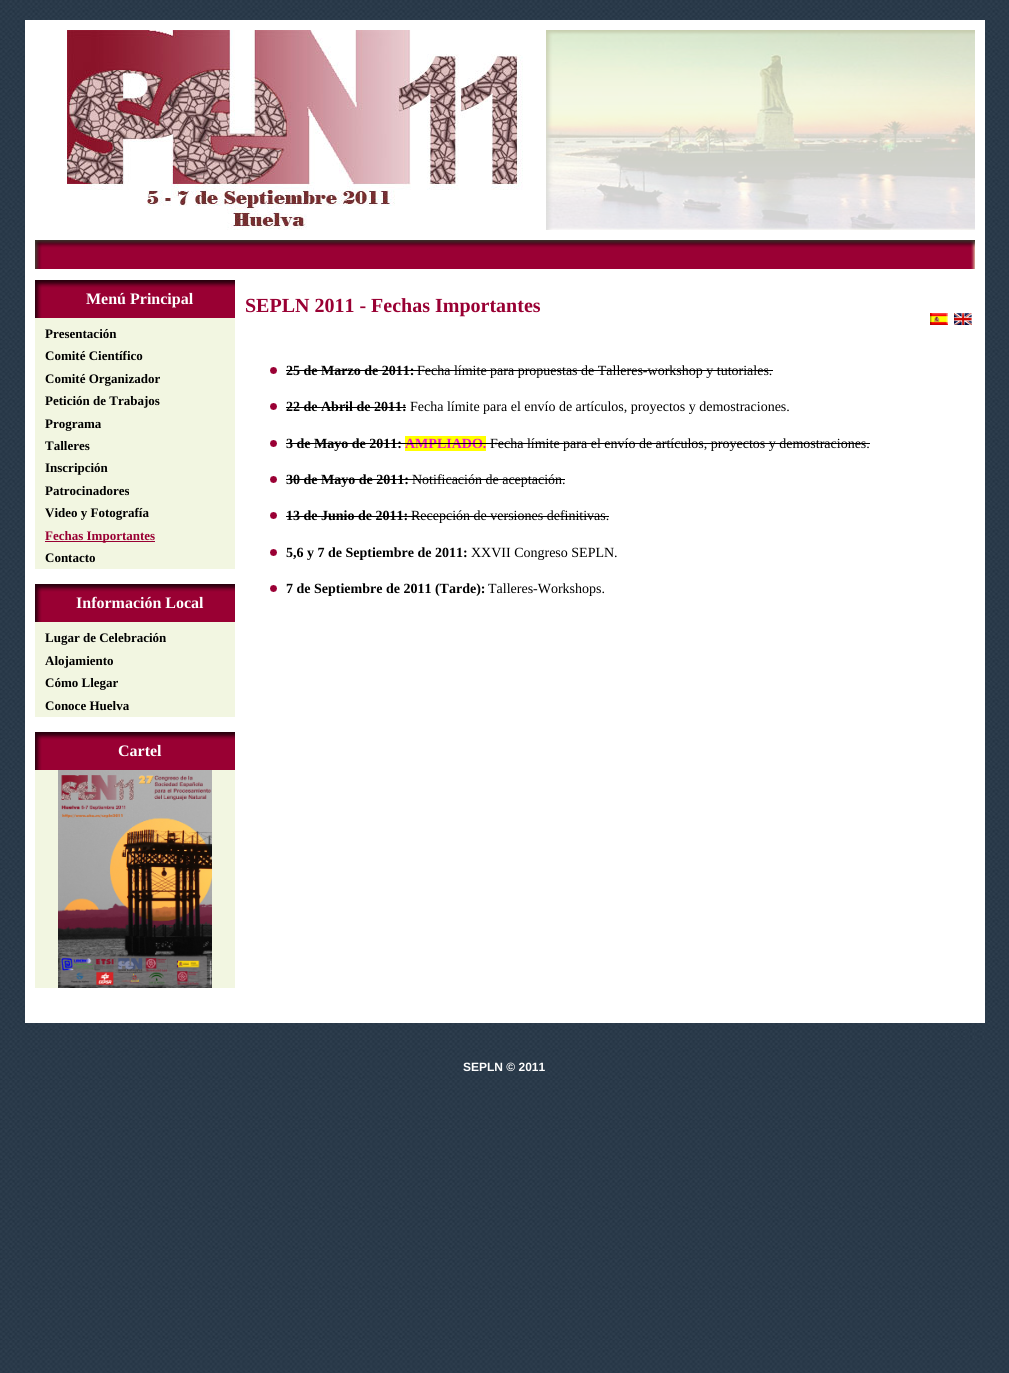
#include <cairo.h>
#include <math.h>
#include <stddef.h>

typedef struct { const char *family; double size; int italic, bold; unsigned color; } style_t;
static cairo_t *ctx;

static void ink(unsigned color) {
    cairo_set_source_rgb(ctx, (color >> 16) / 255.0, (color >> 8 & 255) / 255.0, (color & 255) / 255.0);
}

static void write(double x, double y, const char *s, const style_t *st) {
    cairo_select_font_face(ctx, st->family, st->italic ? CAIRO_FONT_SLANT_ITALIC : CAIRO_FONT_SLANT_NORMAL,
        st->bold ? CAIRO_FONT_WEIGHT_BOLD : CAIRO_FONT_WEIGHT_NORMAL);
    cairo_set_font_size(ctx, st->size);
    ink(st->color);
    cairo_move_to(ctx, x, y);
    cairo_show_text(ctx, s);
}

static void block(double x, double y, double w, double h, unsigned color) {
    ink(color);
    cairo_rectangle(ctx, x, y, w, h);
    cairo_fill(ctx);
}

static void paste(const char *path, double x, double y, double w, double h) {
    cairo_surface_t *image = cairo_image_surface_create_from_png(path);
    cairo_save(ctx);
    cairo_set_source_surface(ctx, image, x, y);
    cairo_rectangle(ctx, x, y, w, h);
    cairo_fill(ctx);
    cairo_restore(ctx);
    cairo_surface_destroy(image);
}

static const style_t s1 = {"Liberation Serif", 16, 0, 1, 0xfefefe};
static const style_t s2 = {"Liberation Serif", 13, 0, 1, 0x000000};
static const style_t s3 = {"Liberation Serif", 13, 0, 1, 0x990033};
static const style_t s4 = {"Liberation Serif", 20, 0, 1, 0x990033};
static const style_t s5 = {"Liberation Serif", 14, 0, 1, 0x000000};
static const style_t s6 = {"Liberation Serif", 14, 0, 0, 0x000000};
static const style_t s7 = {"Liberation Serif", 14, 0, 1, 0xee10cf};
static const style_t s8 = {"Liberation Sans", 12, 0, 1, 0xfefefe};

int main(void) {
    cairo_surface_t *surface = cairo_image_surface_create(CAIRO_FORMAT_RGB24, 1009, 1373);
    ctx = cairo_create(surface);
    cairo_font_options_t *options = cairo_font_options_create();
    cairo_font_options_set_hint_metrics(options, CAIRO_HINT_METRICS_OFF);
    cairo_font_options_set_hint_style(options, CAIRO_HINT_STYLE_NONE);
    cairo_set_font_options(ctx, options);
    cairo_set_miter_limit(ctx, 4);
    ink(0xffffff);
    cairo_paint(ctx);
    paste("pic1.png", 0, 1023, 1009, 350);
    paste("pic2.png", 0, 0, 1009, 1023);
    block(25, 20, 960, 1003, 0xffffff);
    paste("pic3.png", 67, 30, 456, 200);
    paste("pic4.png", 546, 30, 429, 200);
    paste("pic5.png", 546, 30, 429, 200);
    paste("pic6.png", 35, 240, 940, 29);
    block(35, 318, 200, 251, 0xf2f6e1);
    paste("pic7.png", 35, 280, 200, 38);
    write(86, 304, "Menú Principal", &s1);
    write(45, 338, "Presentación", &s2);
    write(45, 360, "Comité Científico", &s2);
    write(45, 383, "Comité Organizador", &s2);
    write(45, 405, "Petición de Trabajos", &s2);
    write(45, 428, "Programa", &s2);
    write(45, 450, "Talleres", &s2);
    write(45, 472, "Inscripción", &s2);
    write(45, 495, "Patrocinadores", &s2);
    write(45, 517, "Video y Fotografía", &s2);
    block(45, 541, 110, 1, 0x990033);
    write(45, 540, "Fechas Importantes", &s3);
    write(45, 562, "Contacto", &s2);
    block(35, 622, 200, 95, 0xf2f6e1);
    paste("pic7.png", 35, 584, 200, 38);
    write(76, 608, "Información Local", &s1);
    write(45, 642, "Lugar de Celebración", &s2);
    write(45, 665, "Alojamiento", &s2);
    write(45, 687, "Cómo Llegar", &s2);
    write(45, 710, "Conoce Huelva", &s2);
    block(35, 770, 200, 218, 0xf2f6e1);
    paste("pic7.png", 35, 732, 200, 38);
    write(118, 756, "Cartel", &s1);
    paste("pic8.png", 58, 770, 154, 218);
    write(245, 312, "SEPLN 2011 - Fechas Importantes", &s4);
    paste("pic9.png", 270, 367, 7, 7);
    write(286, 375, "25 de Marzo de 2011:", &s5);
    block(286, 370, 128, 1, 0x000000);
    block(414, 370, 359, 1, 0x000000);
    write(417, 375, "Fecha límite para propuestas de Talleres-workshop y tutoriales.", &s6);
    paste("pic9.png", 270, 403, 7, 7);
    write(286, 411, "22 de Abril de 2011:", &s5);
    block(286, 407, 120, 1, 0x000000);
    write(410, 411, "Fecha límite para el envío de artículos, proyectos y demostraciones.", &s6);
    paste("pic9.png", 270, 440, 7, 7);
    write(286, 448, "3 de Mayo de 2011:", &s5);
    block(405, 436, 81, 15, 0xffff00);
    write(405, 448, "AMPLIADO.", &s7);
    block(286, 443, 119, 1, 0x000000);
    block(405, 443, 81, 1, 0x000000);
    block(486, 443, 384, 1, 0x000000);
    write(490, 448, "Fecha límite para el envío de artículos, proyectos y demostraciones.", &s6);
    paste("pic9.png", 270, 476, 7, 7);
    write(286, 484, "30 de Mayo de 2011:", &s5);
    block(286, 479, 122, 1, 0x000000);
    block(408, 479, 157, 1, 0x000000);
    write(412, 484, "Notificación de aceptación.", &s6);
    paste("pic9.png", 270, 512, 7, 7);
    write(286, 520, "13 de Junio de 2011:", &s5);
    block(286, 516, 122, 1, 0x000000);
    write(411, 520, "Recepción de versiones definitivas.", &s6);
    block(408, 516, 201, 1, 0x000000);
    paste("pic9.png", 270, 549, 7, 7);
    write(286, 557, "5,6 y 7 de Septiembre de 2011:", &s5);
    write(471, 557, "XXVII Congreso SEPLN.", &s6);
    paste("pic9.png", 270, 585, 7, 7);
    write(286, 593, "7 de Septiembre de 2011 (Tarde):", &s5);
    write(488, 593, "Talleres-Workshops.", &s6);
    paste("pic10.png", 930, 313, 18, 12);
    paste("pic11.png", 954, 313, 18, 12);
    block(946, 1033, 1, 2, 0x2a3a4a);
    paste("pic12.png", 951, 1031, 4, 6);
    paste("pic12.png", 961, 1031, 4, 6);
    paste("pic13.png", 970, 1030, 4, 8);
    paste("pic14.png", 980, 1031, 4, 7);
    paste("pic15.png", 463, 1060, 83, 14);
    write(463, 1071, "SEPLN © 2011", &s8);
    cairo_surface_write_to_png(surface, "screenshot.png");
    cairo_font_options_destroy(options);
    cairo_destroy(ctx);
    cairo_surface_destroy(surface);
    return 0;
}
